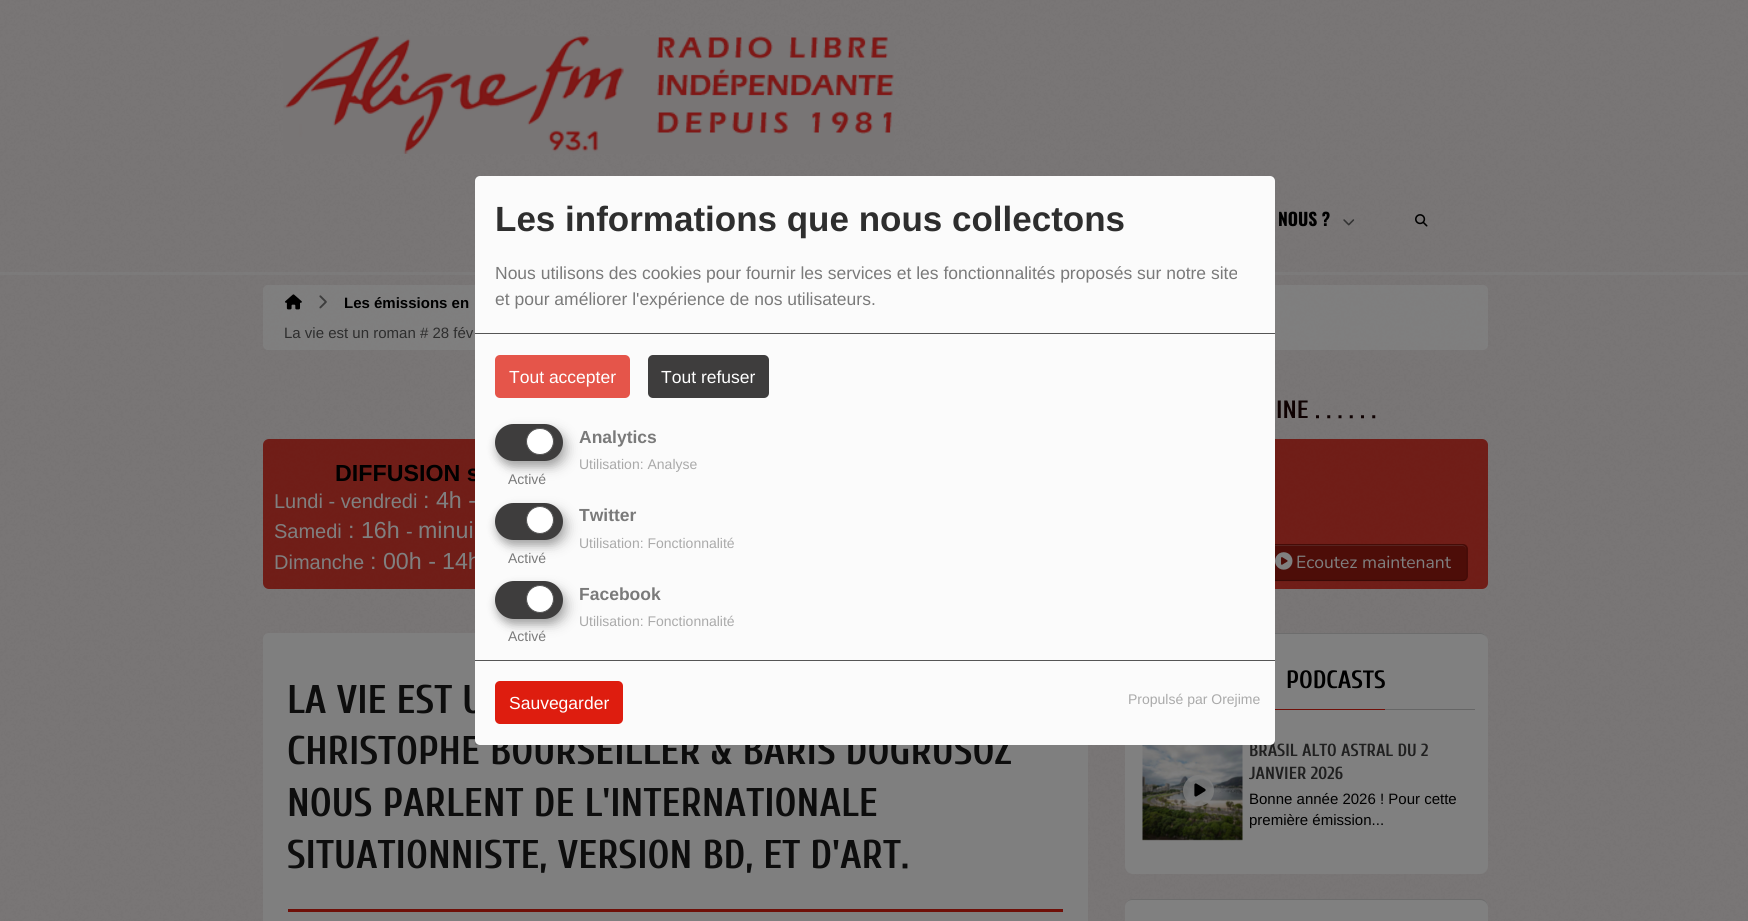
#include <cairo.h>
#include <math.h>
#include <stddef.h>

typedef struct { const char *family; double size; int italic, bold; unsigned color; } style_t;
static cairo_t *ctx;

static void ink(unsigned color) {
    cairo_set_source_rgb(ctx, (color >> 16) / 255.0, (color >> 8 & 255) / 255.0, (color & 255) / 255.0);
}

static void write(double x, double y, const char *s, const style_t *st) {
    cairo_select_font_face(ctx, st->family, st->italic ? CAIRO_FONT_SLANT_ITALIC : CAIRO_FONT_SLANT_NORMAL,
        st->bold ? CAIRO_FONT_WEIGHT_BOLD : CAIRO_FONT_WEIGHT_NORMAL);
    cairo_set_font_size(ctx, st->size);
    ink(st->color);
    cairo_move_to(ctx, x, y);
    cairo_show_text(ctx, s);
}

static void block(double x, double y, double w, double h, unsigned color) {
    ink(color);
    cairo_rectangle(ctx, x, y, w, h);
    cairo_fill(ctx);
}

static void round_path(double x, double y, double w, double h, double r) {
    cairo_new_sub_path(ctx);
    cairo_arc(ctx, x + w - r, y + h - r, r, 0, M_PI / 2);
    cairo_arc(ctx, x + r, y + h - r, r, M_PI / 2, M_PI);
    cairo_arc(ctx, x + r, y + r, r, M_PI, 1.5 * M_PI);
    cairo_arc(ctx, x + w - r, y + r, r, 1.5 * M_PI, 2 * M_PI);
    cairo_close_path(ctx);
}

static void blur_box(double x, double y, double w, double h, double r, double blur, double alpha) {
    cairo_push_group_with_content(ctx, CAIRO_CONTENT_ALPHA);
    cairo_set_operator(ctx, CAIRO_OPERATOR_SOURCE);
    for (int i = 15; i >= -15 && fmin(w, h) + blur * i / 3 > 0; i -= 2) {
        double e = blur * i / 6;
        cairo_set_source_rgba(ctx, 0, 0, 0, alpha * erfc((i - 1) / 8.5) / 2);
        round_path(x - e, y - e, w + 2 * e, h + 2 * e, fmax(0, fmin(r + e + blur * .6, fmin(w, h) / 2 + e)));
        cairo_fill(ctx);
    }
    cairo_pattern_t *soft = cairo_pop_group(ctx);
    cairo_mask(ctx, soft);
    cairo_pattern_destroy(soft);
}

static void paste(const char *path, double x, double y, double w, double h) {
    cairo_surface_t *image = cairo_image_surface_create_from_png(path);
    cairo_save(ctx);
    cairo_set_source_surface(ctx, image, x, y);
    cairo_rectangle(ctx, x, y, w, h);
    cairo_fill(ctx);
    cairo_restore(ctx);
    cairo_surface_destroy(image);
}

static const style_t s1 = {"Liberation Sans", 23.25, 0, 1, 0x000000};
static const style_t s2 = {"Liberation Sans", 23.25, 0, 0, 0x808080};
static const style_t s3 = {"Cuprum", 40, 0, 1, 0x0d0d0d};
static const style_t s4 = {"Cuprum", 17.5, 0, 1, 0x202020};
static const style_t s5 = {"Liberation Sans", 35, 0, 1, 0x2e2e2e};
static const style_t s6 = {"Liberation Sans", 17.5, 0, 0, 0x7a7a7a};
static const style_t s7 = {"Liberation Sans", 17.5, 0, 0, 0xffffff};
static const style_t s8 = {"Liberation Sans", 17.5, 0, 1, 0x7a7a7a};
static const style_t s9 = {"Liberation Sans", 14, 0, 0, 0x7a7a7a};
static const style_t s10 = {"Liberation Sans", 14, 0, 0, 0xaaaaaa};
static const style_t s11 = {"Oswald", 17.5, 0, 1, 0x000000};
static const style_t s12 = {"Liberation Sans", 15, 0, 1, 0x000000};
static const style_t s13 = {"Liberation Sans", 15, 0, 0, 0x2e2e2e};
static const style_t s14 = {"Liberation Sans", 20, 0, 0, 0x808080};
static const style_t s15 = {"Cuprum", 25, 0, 1, 0x0e0101};
static const style_t s16 = {"Nunito", 17.5, 0, 0, 0x808080};
static const style_t s17 = {"Cuprum", 25, 0, 1, 0x000000};
static const style_t s18 = {"Liberation Sans", 15, 0, 0, 0x000000};

int main(void) {
    cairo_surface_t *surface = cairo_image_surface_create(CAIRO_FORMAT_RGB24, 1748, 921);
    ctx = cairo_create(surface);
    cairo_font_options_t *options = cairo_font_options_create();
    cairo_font_options_set_hint_metrics(options, CAIRO_HINT_METRICS_OFF);
    cairo_font_options_set_hint_style(options, CAIRO_HINT_STYLE_NONE);
    cairo_set_font_options(ctx, options);
    cairo_set_miter_limit(ctx, 4);
    ink(0x807d7d);
    cairo_paint(ctx);
    paste("pic1.png", 0, 0, 1748, 921);
    cairo_set_source_rgba(ctx, 0.502, 0.502, 0.502, 0.5);
    cairo_new_path(ctx);
    cairo_move_to(ctx, 0, 272);
    cairo_line_to(ctx, 0, 275);
    cairo_line_to(ctx, 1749, 275);
    cairo_line_to(ctx, 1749, 3);
    cairo_line_to(ctx, 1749, 272);
    cairo_close_path(ctx);
    cairo_fill(ctx);
    cairo_set_source_rgba(ctx, 0.502, 0.502, 0.502, 0.9);
    round_path(263, 285, 1225, 65, 5);
    cairo_fill(ctx);
    cairo_set_source_rgba(ctx, 0.435, 0.059, 0.031, 0.85);
    round_path(263, 439, 395, 150, 6);
    cairo_fill(ctx);
    round_path(1093, 439, 395, 150, 6);
    cairo_fill(ctx);
    ink(0x4d0d08);
    round_path(1259, 544, 209, 37, 5);
    cairo_fill(ctx);
    ink(0x572420);
    cairo_new_path(ctx);
    cairo_move_to(ctx, 1264, 546);
    cairo_line_to(ctx, 1462, 546);
    cairo_curve_to(ctx, 1465, 546, 1466, 548, 1466, 550);
    cairo_line_to(ctx, 1466, 549);
    cairo_curve_to(ctx, 1466, 547, 1464, 545, 1462, 545);
    cairo_line_to(ctx, 1264, 545);
    cairo_curve_to(ctx, 1262, 545, 1260, 547, 1260, 549);
    cairo_line_to(ctx, 1260, 550);
    cairo_curve_to(ctx, 1260, 548, 1262, 546, 1264, 546);
    cairo_close_path(ctx);
    cairo_fill(ctx);
    cairo_new_path(ctx);
    cairo_move_to(ctx, 1465.5, 579.5);
    cairo_curve_to(ctx, 1465, 580, 1463.5, 580.5, 1462.5, 580.5);
    cairo_line_to(ctx, 1264, 580.5);
    cairo_curve_to(ctx, 1262.5, 580.5, 1261.5, 580, 1260.5, 579.5);
    cairo_set_source_rgba(ctx, 0, 0, 0, 0.25);
    cairo_set_line_width(ctx, 1.2);
    cairo_stroke(ctx);
    cairo_new_path(ctx);
    cairo_move_to(ctx, 1260.5, 579.5);
    cairo_curve_to(ctx, 1260, 578.5, 1259.5, 577.5, 1259.5, 576);
    cairo_line_to(ctx, 1259.5, 549);
    cairo_curve_to(ctx, 1259.5, 547.5, 1260, 546.5, 1260.5, 545.5);
    cairo_curve_to(ctx, 1261.5, 545, 1262.5, 544.5, 1264, 544.5);
    cairo_line_to(ctx, 1462.5, 544.5);
    cairo_curve_to(ctx, 1463.5, 544.5, 1465, 545, 1465.5, 545.5);
    cairo_curve_to(ctx, 1466.5, 546.5, 1467, 547.5, 1467, 549);
    cairo_line_to(ctx, 1467, 576);
    cairo_curve_to(ctx, 1467, 577.5, 1466.5, 578.5, 1465.5, 579.5);
    cairo_set_source_rgba(ctx, 0, 0, 0, 0.1);
    cairo_stroke(ctx);
    paste("pic7.png", 1275, 552, 18, 18);
    ink(0x7f7f7f);
    cairo_new_path(ctx);
    cairo_move_to(ctx, 269, 633);
    cairo_line_to(ctx, 1082, 633);
    cairo_curve_to(ctx, 1085.5, 633, 1088, 635.5, 1088, 639);
    cairo_line_to(ctx, 1088, 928);
    cairo_curve_to(ctx, 1088, 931.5, 1085.5, 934, 1082, 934);
    cairo_line_to(ctx, 276, 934);
    cairo_curve_to(ctx, 269, 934, 263, 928, 263, 921);
    cairo_line_to(ctx, 263, 639);
    cairo_curve_to(ctx, 263, 635.5, 265.5, 633, 269, 633);
    cairo_close_path(ctx);
    cairo_fill(ctx);
    ink(0x808080);
    round_path(1125, 633, 363, 241, 8);
    cairo_fill(ctx);
    cairo_set_source_rgba(ctx, 0, 0, 0, 0.15);
    cairo_new_path(ctx);
    cairo_move_to(ctx, 1132, 634);
    cairo_line_to(ctx, 1480, 634);
    cairo_curve_to(ctx, 1484, 634, 1488, 637, 1488, 641);
    cairo_curve_to(ctx, 1488, 637, 1484, 633, 1480, 633);
    cairo_line_to(ctx, 1133, 633);
    cairo_curve_to(ctx, 1129, 633, 1125, 637, 1125, 641);
    cairo_curve_to(ctx, 1125, 637, 1128, 634, 1132, 634);
    cairo_close_path(ctx);
    cairo_fill(ctx);
    block(1275, 709, 110, 1, 0x6f0f08);
    paste("pic8.png", 1142, 745, 101, 96);
    cairo_save(ctx);
    cairo_rectangle(ctx, 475, 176, 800, 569);
    cairo_clip(ctx);
    ink(0x000000);
    blur_box(481, 183, 800, 568, 5, 6, 0.19);
    blur_box(475, 181, 800, 569, 5, 4, 0.2);
    cairo_restore(ctx);
    write(335, 481, "DIFFUSION s", &s1);
    write(423, 508, ": 4h -", &s2);
    write(442, 569, "14h", &s2);
    write(287, 713, "LA VIE EST U", &s3);
    write(287, 764, "CHRISTOPHE BOURSEILLER & BARIS DOGRUSÖZ", &s3);
    write(1249, 756, "BRASIL ALTO ASTRAL DU 2", &s4);
    ink(0xfbfbfb);
    round_path(475, 176, 800, 569, 5);
    cairo_fill(ctx);
    block(475, 333, 800, 1, 0x555555);
    write(495, 231, "Les informations que nous collectons", &s5);
    write(495, 279, "Nous utilisons des cookies pour fournir les services et les fonctionnalités proposés sur notre site", &s6);
    write(495, 305, "et pour améliorer l'expérience de nos utilisateurs.", &s6);
    ink(0xe5554a);
    round_path(495, 355, 135, 43, 5);
    cairo_fill(ctx);
    write(509, 383, "Tout accepter", &s7);
    ink(0x3e3d3d);
    round_path(648, 355, 121, 43, 5);
    cairo_fill(ctx);
    write(661, 383, "Tout refuser", &s7);
    write(579, 443, "Analytics", &s8);
    ink(0x000000);
    blur_box(501, 430, 68, 38, 19, 6, 0.19);
    blur_box(495, 429, 68, 37, 18.5, 4, 0.2);
    ink(0x3e3d3d);
    round_path(495, 424, 68, 37, 18.5);
    cairo_fill(ctx);
    ink(0xffffff);
    round_path(526.5, 428.5, 27, 26, 13);
    cairo_fill_preserve(ctx);
    ink(0x555555);
    cairo_set_line_width(ctx, 1);
    cairo_stroke(ctx);
    write(508, 484, "Activé", &s9);
    write(579, 469, "Utilisation: Analyse", &s10);
    write(579, 521, "Twitter", &s8);
    ink(0x000000);
    blur_box(501, 509, 68, 37, 18.5, 6, 0.19);
    blur_box(495, 508, 68, 37, 18.5, 4, 0.2);
    ink(0x3e3d3d);
    round_path(495, 503, 68, 37, 18.5);
    cairo_fill(ctx);
    ink(0xffffff);
    cairo_arc(ctx, 540, 520, 13.5, 0, 2 * M_PI);
    cairo_fill_preserve(ctx);
    ink(0x555555);
    cairo_stroke(ctx);
    write(508, 563, "Activé", &s9);
    write(579, 548, "Utilisation: Fonctionnalité", &s10);
    write(579, 600, "Facebook", &s8);
    ink(0x000000);
    blur_box(501, 588, 68, 37, 18.5, 6, 0.19);
    blur_box(495, 586, 68, 38, 19, 4, 0.2);
    ink(0x3e3d3d);
    round_path(495, 581, 68, 38, 19);
    cairo_fill(ctx);
    ink(0xffffff);
    cairo_arc(ctx, 540, 599, 13.5, 0, 2 * M_PI);
    cairo_fill_preserve(ctx);
    ink(0x555555);
    cairo_stroke(ctx);
    write(508, 641, "Activé", &s9);
    write(579, 626, "Utilisation: Fonctionnalité", &s10);
    block(475, 660, 800, 1, 0x555555);
    ink(0xde1d0f);
    round_path(495, 681, 128, 43, 5);
    cairo_fill(ctx);
    write(509, 709, "Sauvegarder", &s7);
    write(1128, 704, "Propulsé par Orejime", &s10);
    paste("pic2.png", 283, 36, 611, 118);
    write(1278, 226, "NOUS ?", &s11);
    paste("pic3.png", 1343, 219, 12, 7);
    paste("pic4.png", 1415, 214, 13, 13);
    paste("pic5.png", 285, 294, 17, 16);
    paste("pic6.png", 319, 295, 8, 14);
    write(344, 308, "Les émissions en", &s12);
    write(284, 338, "La vie est un roman # 28 fév", &s13);
    write(274, 508, "Lundi - vendredi", &s14);
    write(274, 538, "Samedi", &s14);
    write(348, 538, ": 16h", &s2);
    write(406, 538, "-", &s14);
    write(418, 538, "minui", &s2);
    write(274, 569, "Dimanche", &s14);
    write(370, 569, ": 00h -", &s2);
    write(1276, 418, "INE . . . . . .", &s15);
    write(1296, 568, "Ecoutez maintenant", &s16);
    block(288, 909, 775, 3, 0x6f0f08);
    write(287, 816, "NOUS PARLENT DE L'INTERNATIONALE", &s3);
    write(287, 868, "SITUATIONNISTE, VERSION BD, ET D'ART.", &s3);
    write(1286, 688, "PODCASTS", &s17);
    block(1385, 709, 90, 1, 0x666666);
    cairo_set_source_rgba(ctx, 0.502, 0.502, 0.502, 0.8);
    cairo_new_path(ctx);
    cairo_arc(ctx, 1198.5, 790.5, 15.5, 0, 2 * M_PI);
    cairo_fill(ctx);
    paste("pic9.png", 1194, 783, 12, 14);
    write(1249, 779, "JANVIER 2026", &s4);
    write(1249, 804, "Bonne année 2026 ! Pour cette", &s18);
    write(1249, 825, "première émission...", &s18);
    ink(0x808080);
    round_path(1125, 899, 363, 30, 8);
    cairo_fill(ctx);
    cairo_set_source_rgba(ctx, 0, 0, 0, 0.15);
    cairo_new_path(ctx);
    cairo_move_to(ctx, 1133, 899);
    cairo_curve_to(ctx, 1128, 899, 1125, 903, 1125, 908);
    cairo_curve_to(ctx, 1125, 903, 1128, 900, 1132, 900);
    cairo_line_to(ctx, 1480, 900);
    cairo_curve_to(ctx, 1484, 900, 1488, 903, 1488, 908);
    cairo_curve_to(ctx, 1488, 903, 1485, 899, 1480, 899);
    cairo_close_path(ctx);
    cairo_fill(ctx);
    cairo_surface_write_to_png(surface, "screenshot.png");
    cairo_font_options_destroy(options);
    cairo_destroy(ctx);
    cairo_surface_destroy(surface);
    return 0;
}
